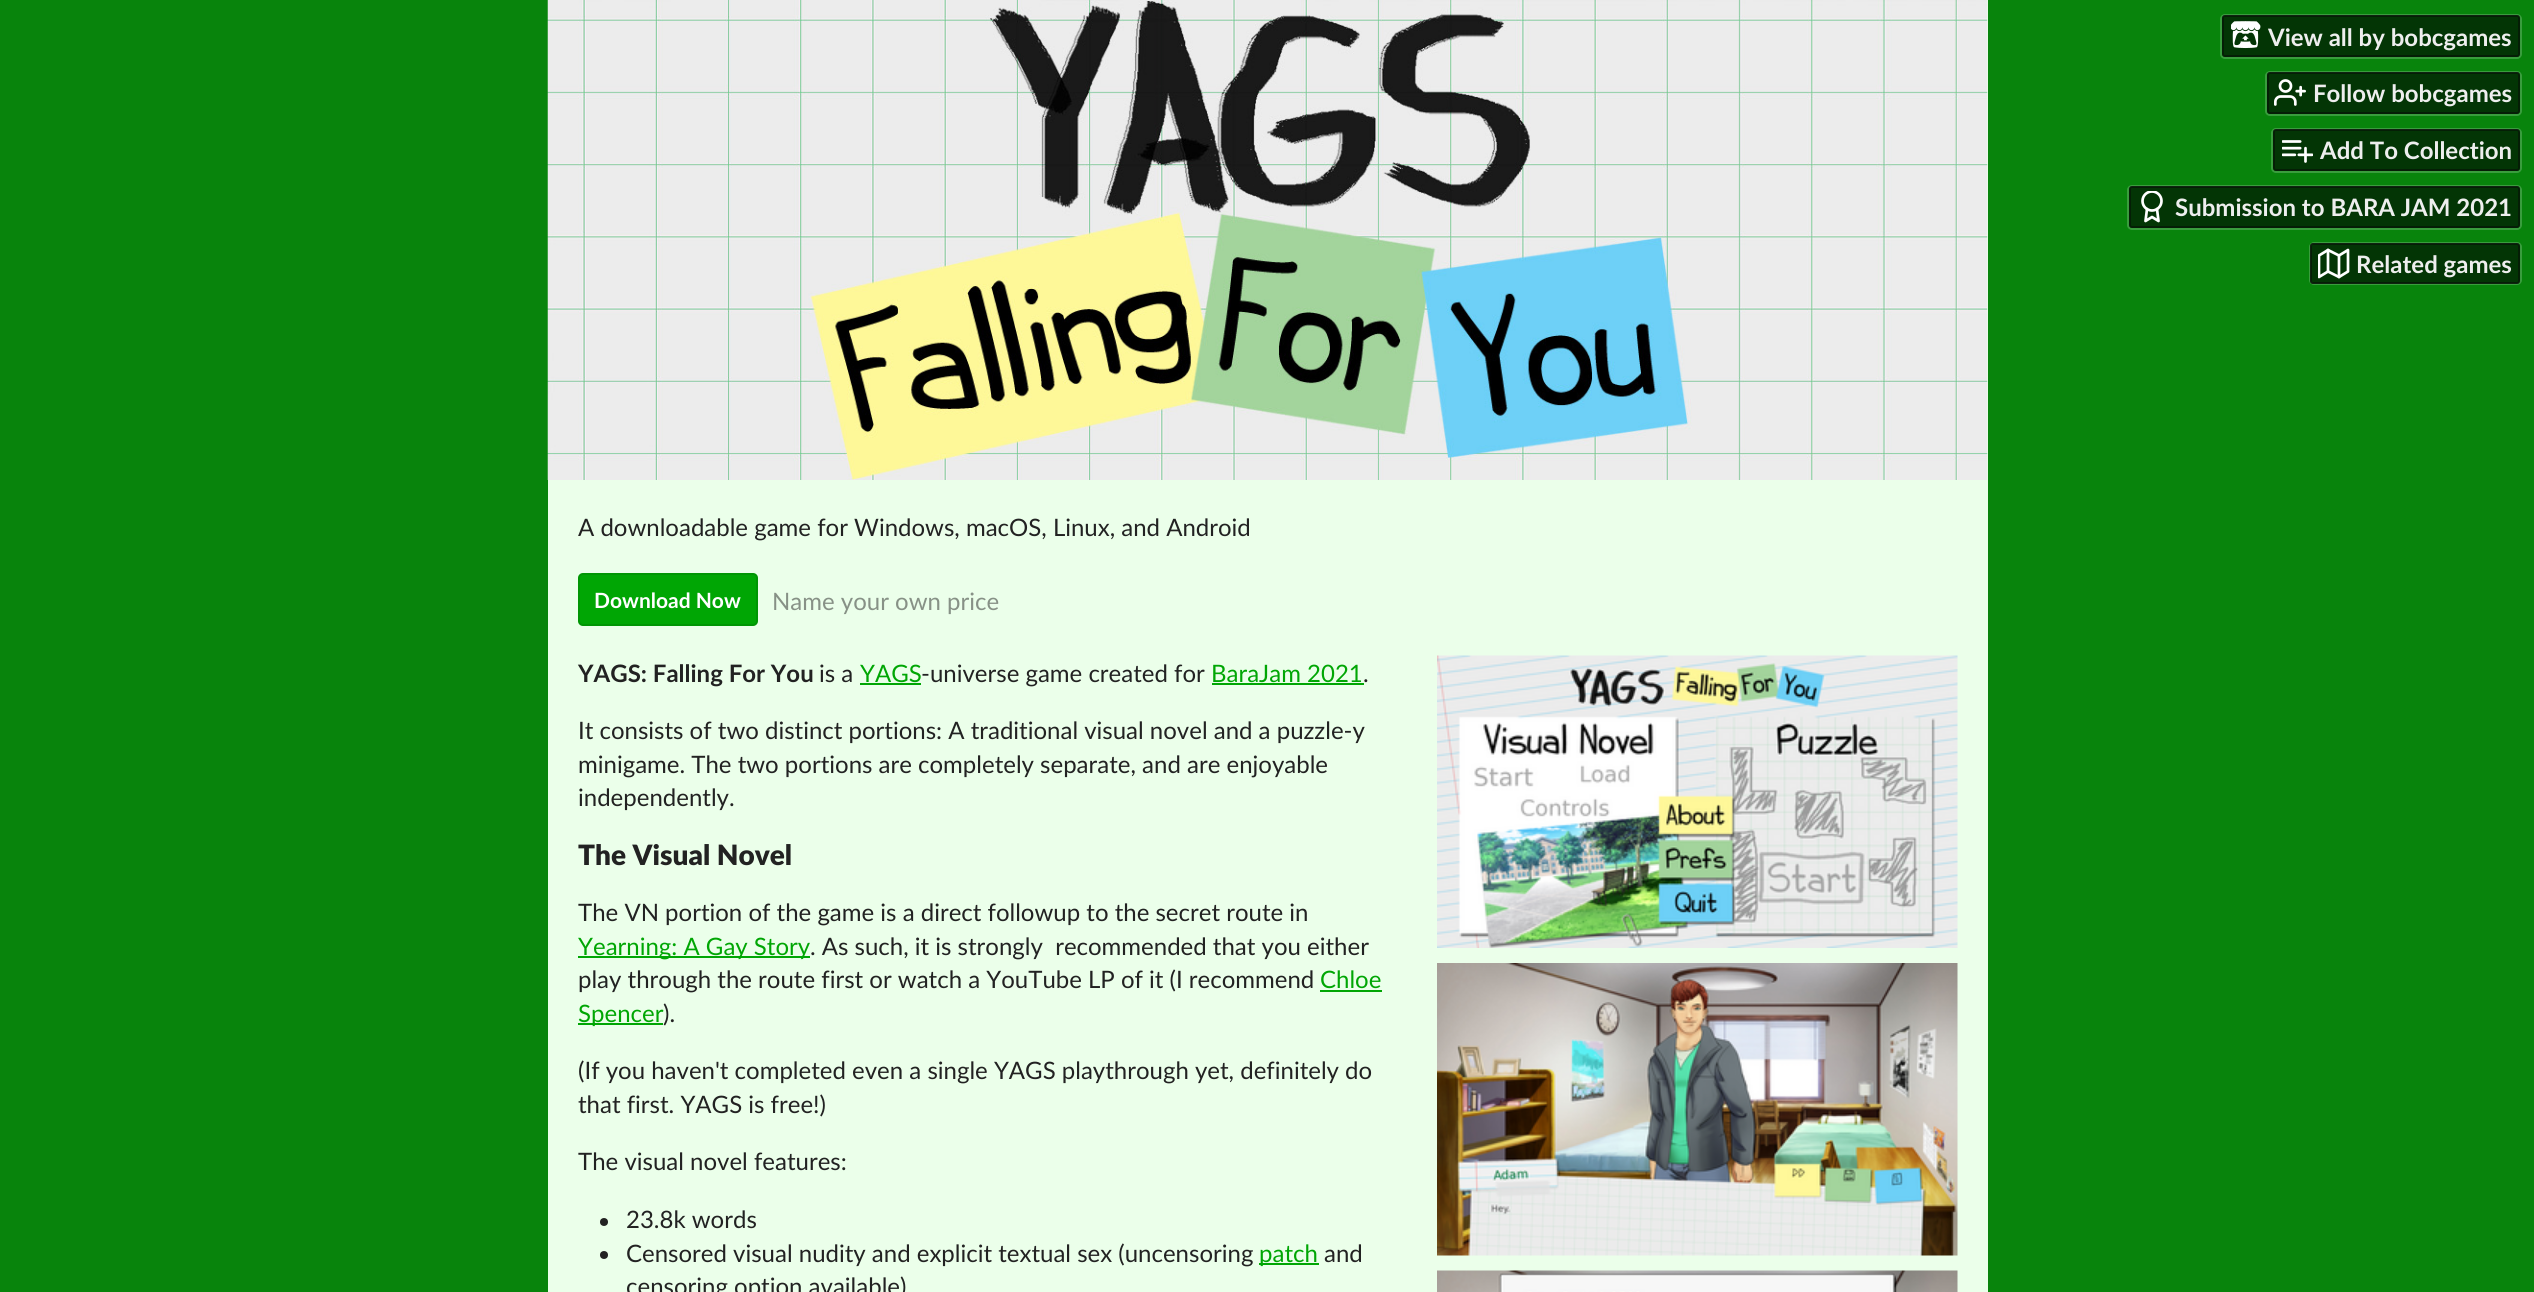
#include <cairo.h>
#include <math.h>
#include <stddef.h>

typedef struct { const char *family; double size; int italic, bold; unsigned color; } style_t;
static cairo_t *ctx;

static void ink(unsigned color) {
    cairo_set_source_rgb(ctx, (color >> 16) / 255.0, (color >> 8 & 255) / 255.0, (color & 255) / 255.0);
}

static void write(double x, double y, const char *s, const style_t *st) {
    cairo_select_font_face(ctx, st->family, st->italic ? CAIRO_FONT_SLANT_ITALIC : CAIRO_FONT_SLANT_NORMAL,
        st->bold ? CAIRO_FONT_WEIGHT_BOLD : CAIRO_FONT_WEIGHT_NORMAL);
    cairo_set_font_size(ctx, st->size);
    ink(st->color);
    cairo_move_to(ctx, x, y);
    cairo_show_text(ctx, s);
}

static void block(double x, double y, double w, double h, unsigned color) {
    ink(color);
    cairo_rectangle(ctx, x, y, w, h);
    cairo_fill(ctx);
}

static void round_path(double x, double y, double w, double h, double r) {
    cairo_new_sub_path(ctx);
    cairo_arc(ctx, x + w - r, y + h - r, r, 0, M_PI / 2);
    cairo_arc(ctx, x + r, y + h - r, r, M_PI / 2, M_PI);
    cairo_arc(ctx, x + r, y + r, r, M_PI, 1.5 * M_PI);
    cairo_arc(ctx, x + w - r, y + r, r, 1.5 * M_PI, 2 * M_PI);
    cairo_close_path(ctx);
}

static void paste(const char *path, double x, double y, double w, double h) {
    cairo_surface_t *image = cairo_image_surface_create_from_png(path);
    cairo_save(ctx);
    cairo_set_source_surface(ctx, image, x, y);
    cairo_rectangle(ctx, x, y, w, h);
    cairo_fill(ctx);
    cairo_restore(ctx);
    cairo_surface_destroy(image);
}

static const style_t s1 = {"Lato", 24, 0, 1, 0xeeeeee};
static const style_t s2 = {"Lato", 24, 0, 0, 0x222222};
static const style_t s3 = {"Lato", 21, 0, 1, 0xffffff};
static const style_t s4 = {"Lato", 24, 0, 0, 0x879186};
static const style_t s5 = {"Lato", 24, 0, 1, 0x222222};
static const style_t s6 = {"Lato", 24, 0, 0, 0x00a604};
static const style_t s7 = {"Lato Black", 28, 0, 0, 0x222222};

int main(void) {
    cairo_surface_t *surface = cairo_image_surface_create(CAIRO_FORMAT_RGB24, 2534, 1292);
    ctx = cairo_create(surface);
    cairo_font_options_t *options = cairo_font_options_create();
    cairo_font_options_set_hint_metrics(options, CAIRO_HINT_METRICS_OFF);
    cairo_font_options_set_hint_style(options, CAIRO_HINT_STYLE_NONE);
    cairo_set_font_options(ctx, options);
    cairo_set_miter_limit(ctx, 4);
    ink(0x08840c);
    cairo_paint(ctx);
    round_path(2221, 15, 300, 43, 4);
    ink(0x399d3d);
    cairo_stroke(ctx);
    cairo_set_source_rgba(ctx, 0, 0, 0, 0.6);
    round_path(2222, 15, 298, 42, 3);
    cairo_fill(ctx);
    round_path(2223, 16, 296, 40, 2);
    cairo_set_source_rgba(ctx, 0.039, 0.039, 0.039, 0.5);
    cairo_stroke(ctx);
    paste("pic1.png", 2231, 21, 30, 28);
    write(2268, 46, "View all by bobcgames", &s1);
    round_path(2266, 72, 255, 43, 4);
    ink(0x399d3d);
    cairo_stroke(ctx);
    cairo_set_source_rgba(ctx, 0, 0, 0, 0.6);
    round_path(2267, 72, 253, 42, 3);
    cairo_fill(ctx);
    round_path(2268, 73, 251, 40, 2);
    cairo_set_source_rgba(ctx, 0.039, 0.039, 0.039, 0.5);
    cairo_stroke(ctx);
    paste("pic2.png", 2274, 79, 32, 27);
    write(2313, 102, "Follow bobcgames", &s1);
    round_path(2272, 129, 249, 43, 4);
    ink(0x399d3d);
    cairo_stroke(ctx);
    cairo_set_source_rgba(ctx, 0, 0, 0, 0.6);
    round_path(2273, 129, 247, 42, 3);
    cairo_fill(ctx);
    round_path(2274, 130, 245, 40, 2);
    cairo_set_source_rgba(ctx, 0.039, 0.039, 0.039, 0.5);
    cairo_stroke(ctx);
    paste("pic3.png", 2282, 140, 31, 23);
    write(2320, 159, "Add To Collection", &s1);
    round_path(2128, 186, 393, 43, 4);
    ink(0x399d3d);
    cairo_stroke(ctx);
    cairo_set_source_rgba(ctx, 0, 0, 0, 0.6);
    round_path(2129, 186, 391, 42, 3);
    cairo_fill(ctx);
    round_path(2130, 187, 389, 40, 2);
    cairo_set_source_rgba(ctx, 0.039, 0.039, 0.039, 0.5);
    cairo_stroke(ctx);
    cairo_save(ctx);
    cairo_rectangle(ctx, 2136, 191, 33, 31);
    cairo_clip(ctx);
    cairo_arc(ctx, 2152, 201, 9.5, 0, 2 * M_PI);
    ink(0xffffff);
    cairo_set_line_width(ctx, 2.7);
    cairo_stroke(ctx);
    cairo_restore(ctx);
    cairo_new_path(ctx);
    cairo_move_to(ctx, 2147, 209);
    cairo_line_to(ctx, 2145.5, 221);
    cairo_line_to(ctx, 2152, 217);
    cairo_line_to(ctx, 2158.5, 221);
    cairo_line_to(ctx, 2157, 209);
    ink(0xffffff);
    cairo_set_line_width(ctx, 2.7);
    cairo_set_line_cap(ctx, CAIRO_LINE_CAP_ROUND);
    cairo_set_line_join(ctx, CAIRO_LINE_JOIN_ROUND);
    cairo_stroke(ctx);
    write(2175, 216, "Submission to BARA JAM 2021", &s1);
    round_path(2310, 243, 211, 41, 4);
    ink(0x399d3d);
    cairo_set_line_width(ctx, 2);
    cairo_set_line_cap(ctx, CAIRO_LINE_CAP_BUTT);
    cairo_set_line_join(ctx, CAIRO_LINE_JOIN_MITER);
    cairo_stroke(ctx);
    cairo_set_source_rgba(ctx, 0, 0, 0, 0.6);
    round_path(2310, 243, 210, 41, 3);
    cairo_fill(ctx);
    round_path(2311, 244, 208, 39, 2);
    cairo_set_source_rgba(ctx, 0.039, 0.039, 0.039, 0.5);
    cairo_stroke(ctx);
    cairo_save(ctx);
    cairo_rectangle(ctx, 2318, 248, 33, 31);
    cairo_clip(ctx);
    cairo_new_path(ctx);
    cairo_move_to(ctx, 2319, 255.5);
    cairo_line_to(ctx, 2319, 277);
    cairo_line_to(ctx, 2328, 271.5);
    cairo_line_to(ctx, 2339, 277);
    cairo_line_to(ctx, 2348, 271.5);
    cairo_line_to(ctx, 2348, 250);
    cairo_line_to(ctx, 2339, 255.5);
    cairo_line_to(ctx, 2328, 250);
    cairo_close_path(ctx);
    ink(0xffffff);
    cairo_set_line_width(ctx, 2.7);
    cairo_set_line_cap(ctx, CAIRO_LINE_CAP_ROUND);
    cairo_set_line_join(ctx, CAIRO_LINE_JOIN_ROUND);
    cairo_stroke(ctx);
    cairo_restore(ctx);
    cairo_new_path(ctx);
    cairo_move_to(ctx, 2328, 250);
    cairo_line_to(ctx, 2328, 271.5);
    cairo_move_to(ctx, 2339, 255.5);
    cairo_line_to(ctx, 2339, 277);
    ink(0xffffff);
    cairo_set_line_width(ctx, 2.7);
    cairo_set_line_cap(ctx, CAIRO_LINE_CAP_ROUND);
    cairo_set_line_join(ctx, CAIRO_LINE_JOIN_ROUND);
    cairo_stroke(ctx);
    write(2356, 273, "Related games", &s1);
    block(548, 0, 1440, 1292, 0xebffea);
    paste("pic4.png", 547, 0, 1441, 480);
    write(578, 536, "A downloadable game for Windows, macOS, Linux, and Android", &s2);
    ink(0x00a604);
    round_path(578, 573, 180, 53, 5);
    cairo_fill(ctx);
    round_path(579, 574, 178, 51, 4);
    cairo_set_source_rgba(ctx, 0, 0, 0, 0.1);
    cairo_set_line_width(ctx, 2);
    cairo_set_line_cap(ctx, CAIRO_LINE_CAP_BUTT);
    cairo_set_line_join(ctx, CAIRO_LINE_JOIN_MITER);
    cairo_stroke(ctx);
    write(594, 608, "Download Now", &s3);
    write(772, 610, "Name your own price", &s4);
    write(578, 682, "YAGS: Falling For You", &s5);
    write(819, 682, "is a", &s2);
    write(860, 682, "YAGS", &s6);
    block(860, 683, 61, 2, 0x00a604);
    write(921, 682, "-universe game created for", &s2);
    write(1211, 682, "BaraJam 2021", &s6);
    block(1212, 683, 152, 2, 0x00a604);
    write(1363, 682, ".", &s2);
    write(578, 739, "It consists of two distinct portions: A traditional visual novel and a puzzle-y", &s2);
    write(578, 773, "minigame. The two portions are completely separate, and are enjoyable", &s2);
    write(578, 806, "independently.", &s2);
    write(578, 865, "The Visual Novel", &s7);
    write(578, 921, "The VN portion of the game is a direct followup to the secret route in", &s2);
    block(578, 956, 232, 2, 0x00a604);
    write(578, 955, "Yearning: A Gay Story", &s6);
    write(810, 955, ". As such, it is strongly  recommended that you either", &s2);
    write(578, 988, "play through the route first or watch a YouTube LP of it (I recommend", &s2);
    write(1320, 988, "Chloe", &s6);
    block(1320, 990, 62, 2, 0x00a604);
    block(578, 1023, 85, 2, 0x00a604);
    write(578, 1022, "Spencer", &s6);
    write(663, 1022, ").", &s2);
    write(578, 1079, "(If you haven't completed even a single YAGS playthrough yet, definitely do", &s2);
    write(578, 1113, "that first. YAGS is free!)", &s2);
    write(578, 1170, "The visual novel features:", &s2);
    cairo_new_path(ctx);
    cairo_arc(ctx, 604, 1222, 4, 0, 2 * M_PI);
    cairo_fill(ctx);
    write(626, 1228, "23.8k words", &s2);
    cairo_new_path(ctx);
    cairo_arc(ctx, 604, 1255, 4, 0, 2 * M_PI);
    cairo_fill(ctx);
    write(626, 1262, "Censored visual nudity and explicit textual sex (uncensoring", &s2);
    block(1259, 1263, 60, 2, 0x00a604);
    write(1259, 1262, "patch", &s6);
    write(1324, 1262, "and", &s2);
    write(626, 1295, "censoring option available)", &s2);
    paste("pic5.png", 1437, 655, 521, 293);
    paste("pic6.png", 1437, 963, 521, 293);
    paste("pic7.png", 1437, 1270, 521, 22);
    cairo_surface_write_to_png(surface, "screenshot.png");
    cairo_font_options_destroy(options);
    cairo_destroy(ctx);
    cairo_surface_destroy(surface);
    return 0;
}
